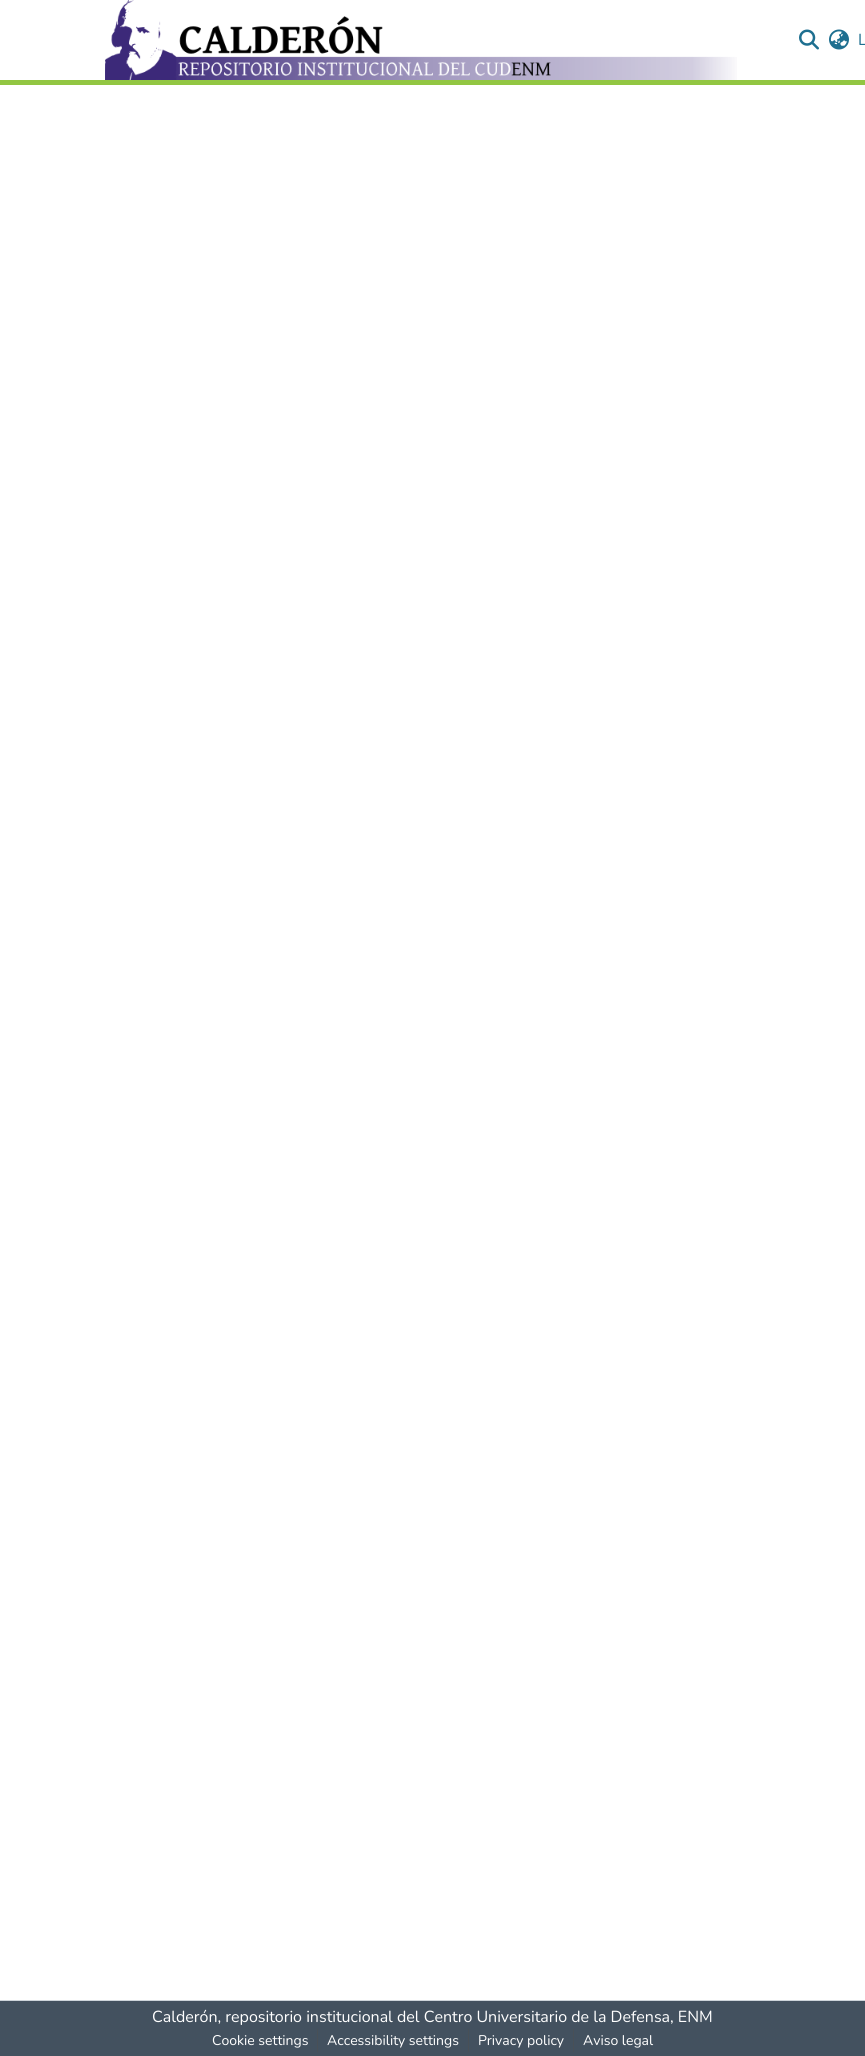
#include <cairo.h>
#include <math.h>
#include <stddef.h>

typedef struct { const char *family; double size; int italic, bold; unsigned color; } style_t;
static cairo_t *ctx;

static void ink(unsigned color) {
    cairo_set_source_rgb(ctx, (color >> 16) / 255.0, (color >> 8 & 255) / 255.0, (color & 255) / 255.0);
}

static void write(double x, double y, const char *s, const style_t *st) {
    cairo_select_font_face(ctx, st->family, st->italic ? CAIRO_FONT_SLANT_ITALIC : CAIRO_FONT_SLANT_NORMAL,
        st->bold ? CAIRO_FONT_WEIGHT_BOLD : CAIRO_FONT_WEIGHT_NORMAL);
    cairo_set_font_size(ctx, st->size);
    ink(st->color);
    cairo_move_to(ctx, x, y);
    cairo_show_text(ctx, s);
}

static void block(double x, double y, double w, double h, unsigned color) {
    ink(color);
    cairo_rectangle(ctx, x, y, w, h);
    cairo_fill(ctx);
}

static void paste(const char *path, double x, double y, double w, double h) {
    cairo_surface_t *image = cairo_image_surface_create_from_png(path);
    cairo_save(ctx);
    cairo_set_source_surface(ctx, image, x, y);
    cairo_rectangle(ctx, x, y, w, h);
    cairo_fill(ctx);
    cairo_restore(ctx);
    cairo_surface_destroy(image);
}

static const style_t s1 = {"Nunito", 16, 0, 0, 0x1e6f90};
static const style_t s2 = {"Nunito", 16, 0, 0, 0xffffff};
static const style_t s3 = {"Nunito", 14, 0, 0, 0xffffff};

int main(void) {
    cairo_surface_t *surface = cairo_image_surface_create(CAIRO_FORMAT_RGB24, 865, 2056);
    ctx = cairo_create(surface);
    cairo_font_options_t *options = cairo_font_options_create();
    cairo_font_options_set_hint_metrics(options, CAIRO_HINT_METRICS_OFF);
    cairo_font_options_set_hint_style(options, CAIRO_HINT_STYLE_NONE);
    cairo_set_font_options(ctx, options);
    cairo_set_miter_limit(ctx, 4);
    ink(0xffffff);
    cairo_paint(ctx);
    block(0, 80, 865, 5, 0x92c642);
    paste("pic1.png", 105, 0, 632, 80);
    paste("pic2.png", 799, 29, 20, 21);
    paste("pic3.png", 829, 29, 20, 21);
    write(858, 45, "L", &s1);
    block(0, 2001, 865, 55, 0x43515f);
    block(0, 2000, 865, 1, 0xced4da);
    write(152, 2022, "Calderón, repositorio institucional del Centro Universitario de la Defensa, ENM", &s2);
    write(212, 2045, "Cookie settings", &s3);
    block(317, 2029, 1, 23, 0x495057);
    write(327, 2045, "Accessibility settings", &s3);
    block(468, 2029, 1, 23, 0x495057);
    write(478, 2045, "Privacy policy", &s3);
    block(573, 2029, 1, 23, 0x495057);
    write(583, 2045, "Aviso legal", &s3);
    cairo_surface_write_to_png(surface, "screenshot.png");
    cairo_font_options_destroy(options);
    cairo_destroy(ctx);
    cairo_surface_destroy(surface);
    return 0;
}
